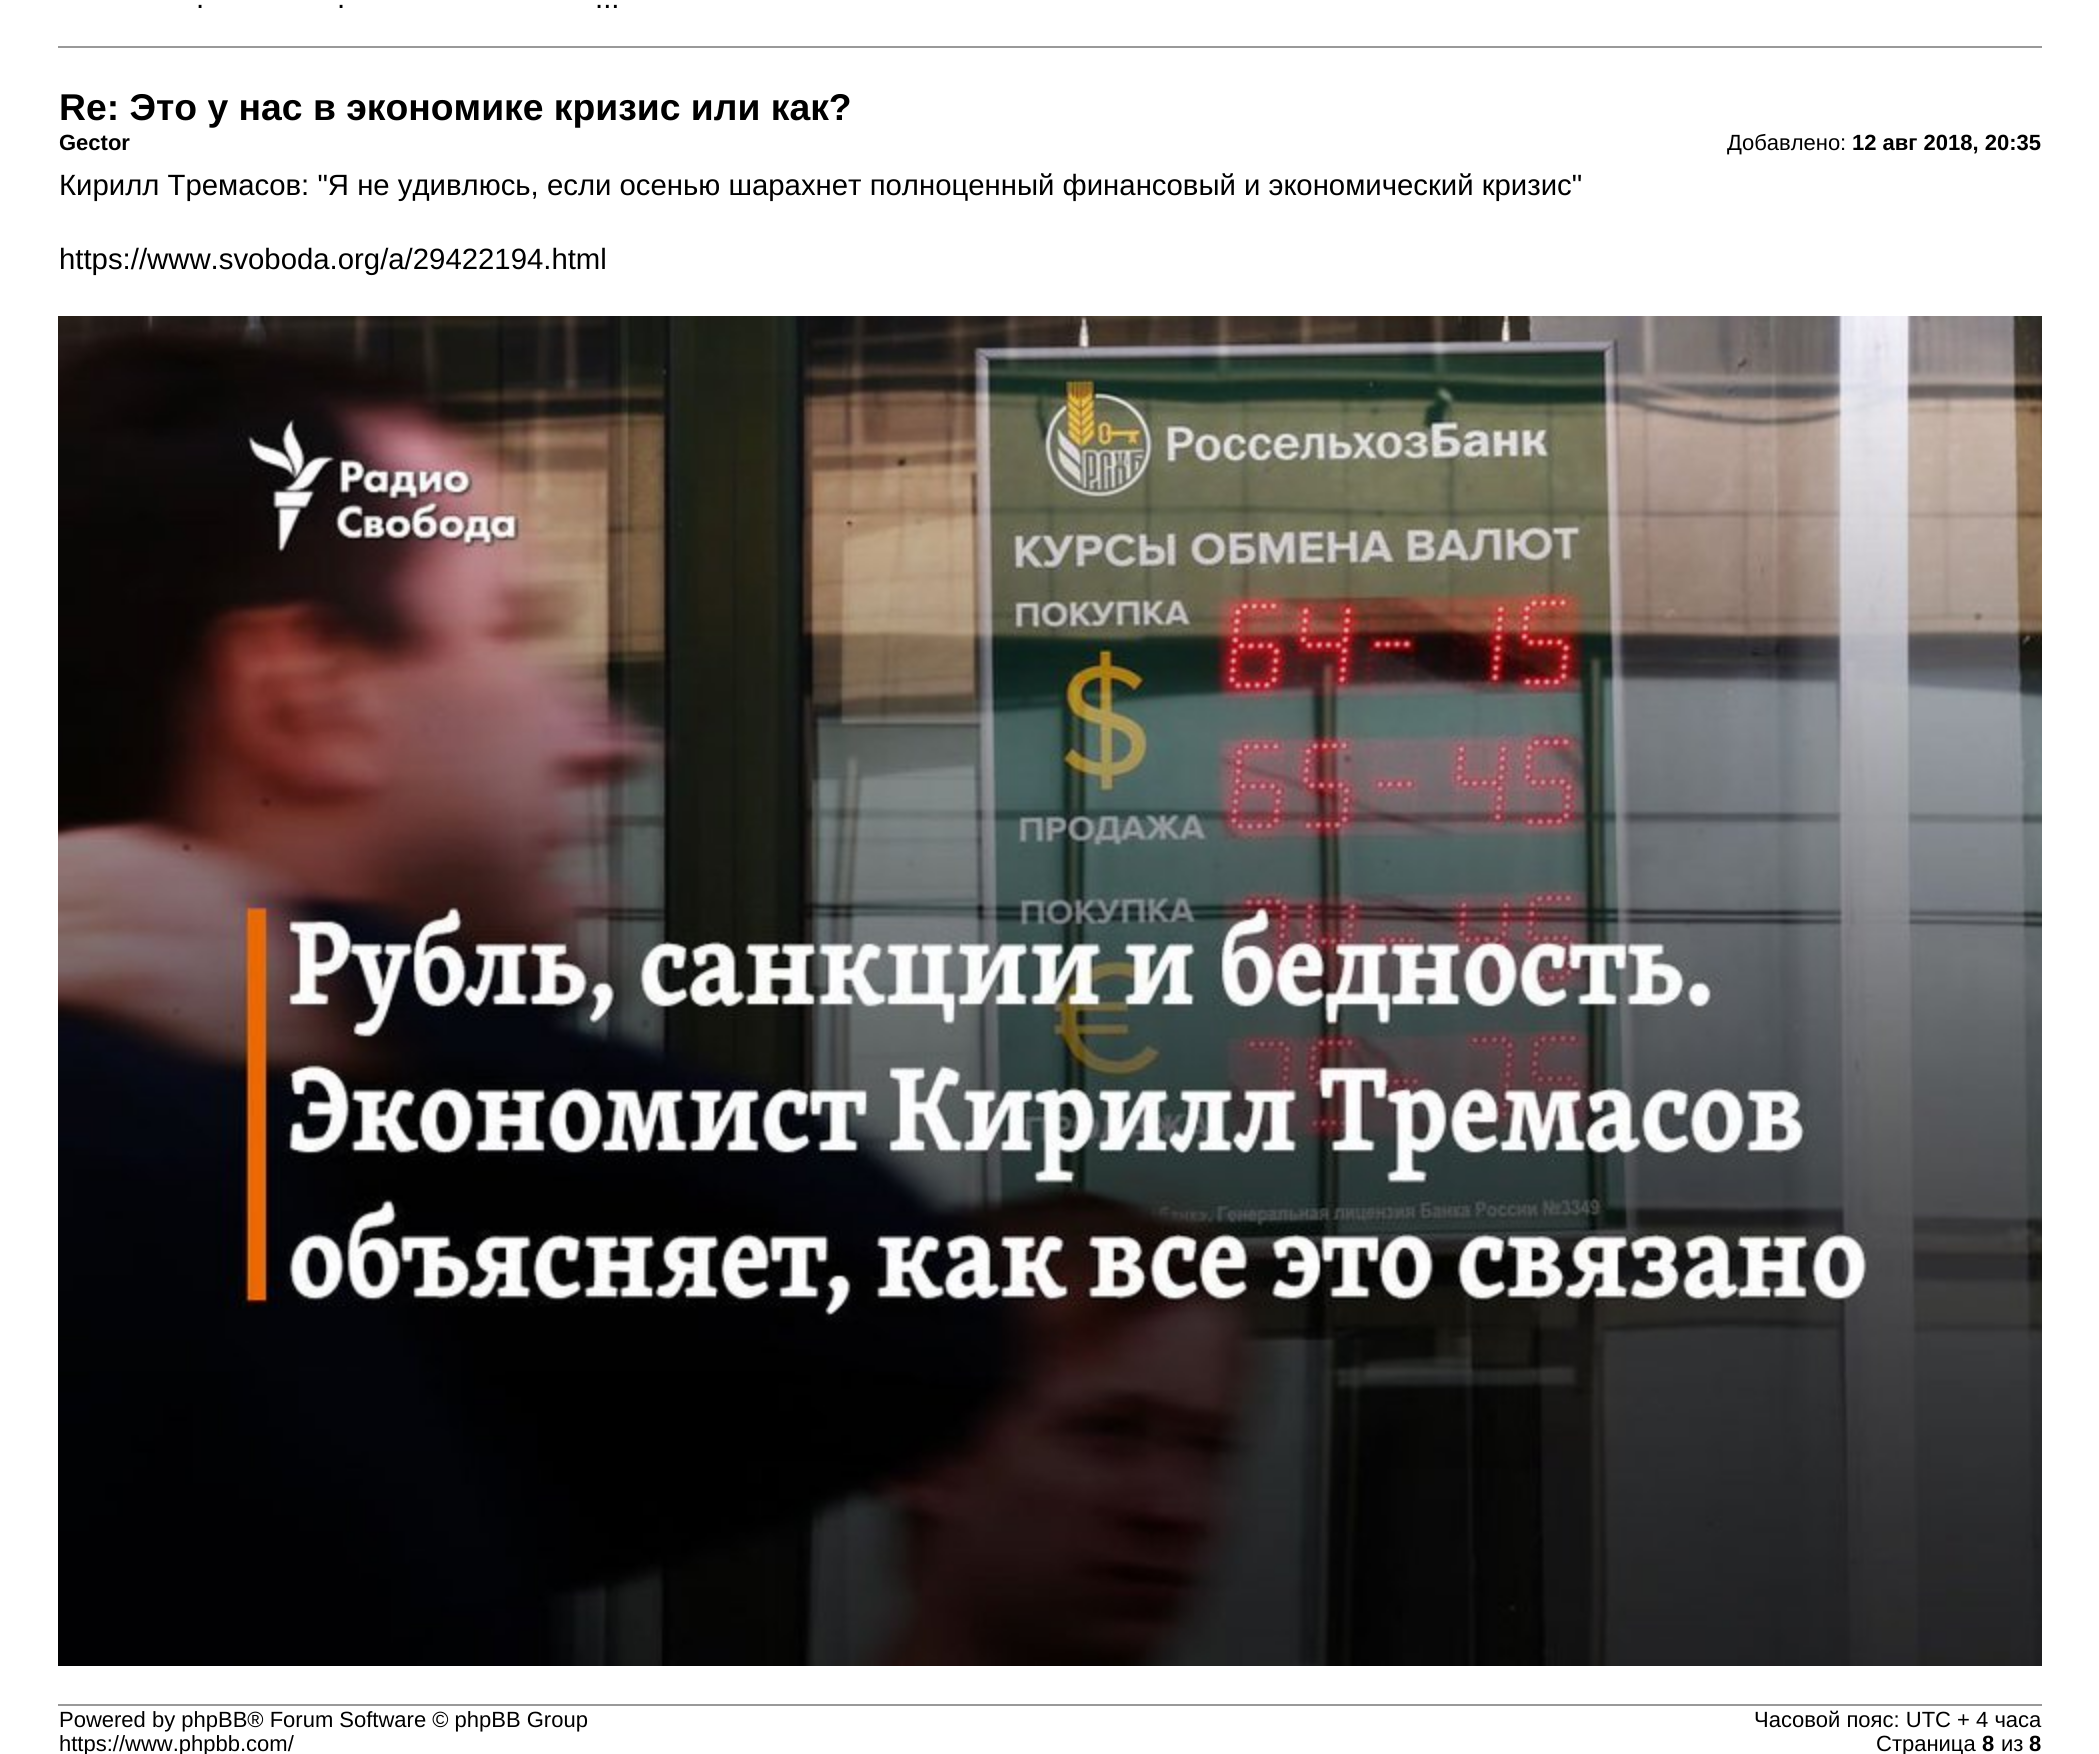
#include <cairo.h>
#include <math.h>
#include <stddef.h>

typedef struct { const char *family; double size; int italic, bold; unsigned color; } style_t;
static cairo_t *ctx;

static void ink(unsigned color) {
    cairo_set_source_rgb(ctx, (color >> 16) / 255.0, (color >> 8 & 255) / 255.0, (color & 255) / 255.0);
}

static void write(double x, double y, const char *s, const style_t *st) {
    cairo_select_font_face(ctx, st->family, st->italic ? CAIRO_FONT_SLANT_ITALIC : CAIRO_FONT_SLANT_NORMAL,
        st->bold ? CAIRO_FONT_WEIGHT_BOLD : CAIRO_FONT_WEIGHT_NORMAL);
    cairo_set_font_size(ctx, st->size);
    ink(st->color);
    cairo_move_to(ctx, x, y);
    cairo_show_text(ctx, s);
}

static void block(double x, double y, double w, double h, unsigned color) {
    ink(color);
    cairo_rectangle(ctx, x, y, w, h);
    cairo_fill(ctx);
}

static void paste(const char *path, double x, double y, double w, double h) {
    cairo_surface_t *image = cairo_image_surface_create_from_png(path);
    cairo_save(ctx);
    cairo_set_source_surface(ctx, image, x, y);
    cairo_rectangle(ctx, x, y, w, h);
    cairo_fill(ctx);
    cairo_restore(ctx);
    cairo_surface_destroy(image);
}

static const style_t s1 = {"Liberation Sans", 29.33, 0, 0, 0x000000};
static const style_t s2 = {"Liberation Sans", 37.3, 0, 1, 0x000000};
static const style_t s3 = {"Liberation Sans", 22, 0, 1, 0x000000};
static const style_t s4 = {"Liberation Sans", 22, 0, 0, 0x000000};

int main(void) {
    cairo_surface_t *surface = cairo_image_surface_create(CAIRO_FORMAT_RGB24, 2099, 1754);
    ctx = cairo_create(surface);
    cairo_font_options_t *options = cairo_font_options_create();
    cairo_font_options_set_hint_metrics(options, CAIRO_HINT_METRICS_OFF);
    cairo_font_options_set_hint_style(options, CAIRO_HINT_STYLE_NONE);
    cairo_set_font_options(ctx, options);
    cairo_set_miter_limit(ctx, 4);
    ink(0xffffff);
    cairo_paint(ctx);
    write(196, 8, ".", &s1);
    write(337, 8, ".", &s1);
    write(595, 8, "...", &s1);
    block(58, 46, 1984, 2, 0x999999);
    write(59, 120, "Re: Это у нас в экономике кризис или как?", &s2);
    write(59, 150, "Gector", &s3);
    write(1727, 150, "Добавлено:", &s4);
    write(1852, 150, "12 авг 2018, 20:35", &s3);
    write(59, 195, "Кирилл Тремасов: \"Я не удивлюсь, если осенью шарахнет полноценный финансовый и экономический кризис\"", &s1);
    write(59, 269, "https://www.svoboda.org/a/29422194.html", &s1);
    paste("pic1.png", 58, 316, 1984, 1350);
    block(58, 1704, 1984, 2, 0x999999);
    write(59, 1727, "Powered by phpBB® Forum Software © phpBB Group", &s4);
    write(59, 1751, "https://www.phpbb.com/", &s4);
    write(1754, 1727, "Часовой пояс: UTC + 4 часа", &s4);
    write(1876, 1751, "Страница", &s4);
    write(1982, 1751, "8", &s3);
    write(2001, 1751, "из", &s4);
    write(2029, 1751, "8", &s3);
    cairo_surface_write_to_png(surface, "screenshot.png");
    cairo_font_options_destroy(options);
    cairo_destroy(ctx);
    cairo_surface_destroy(surface);
    return 0;
}
